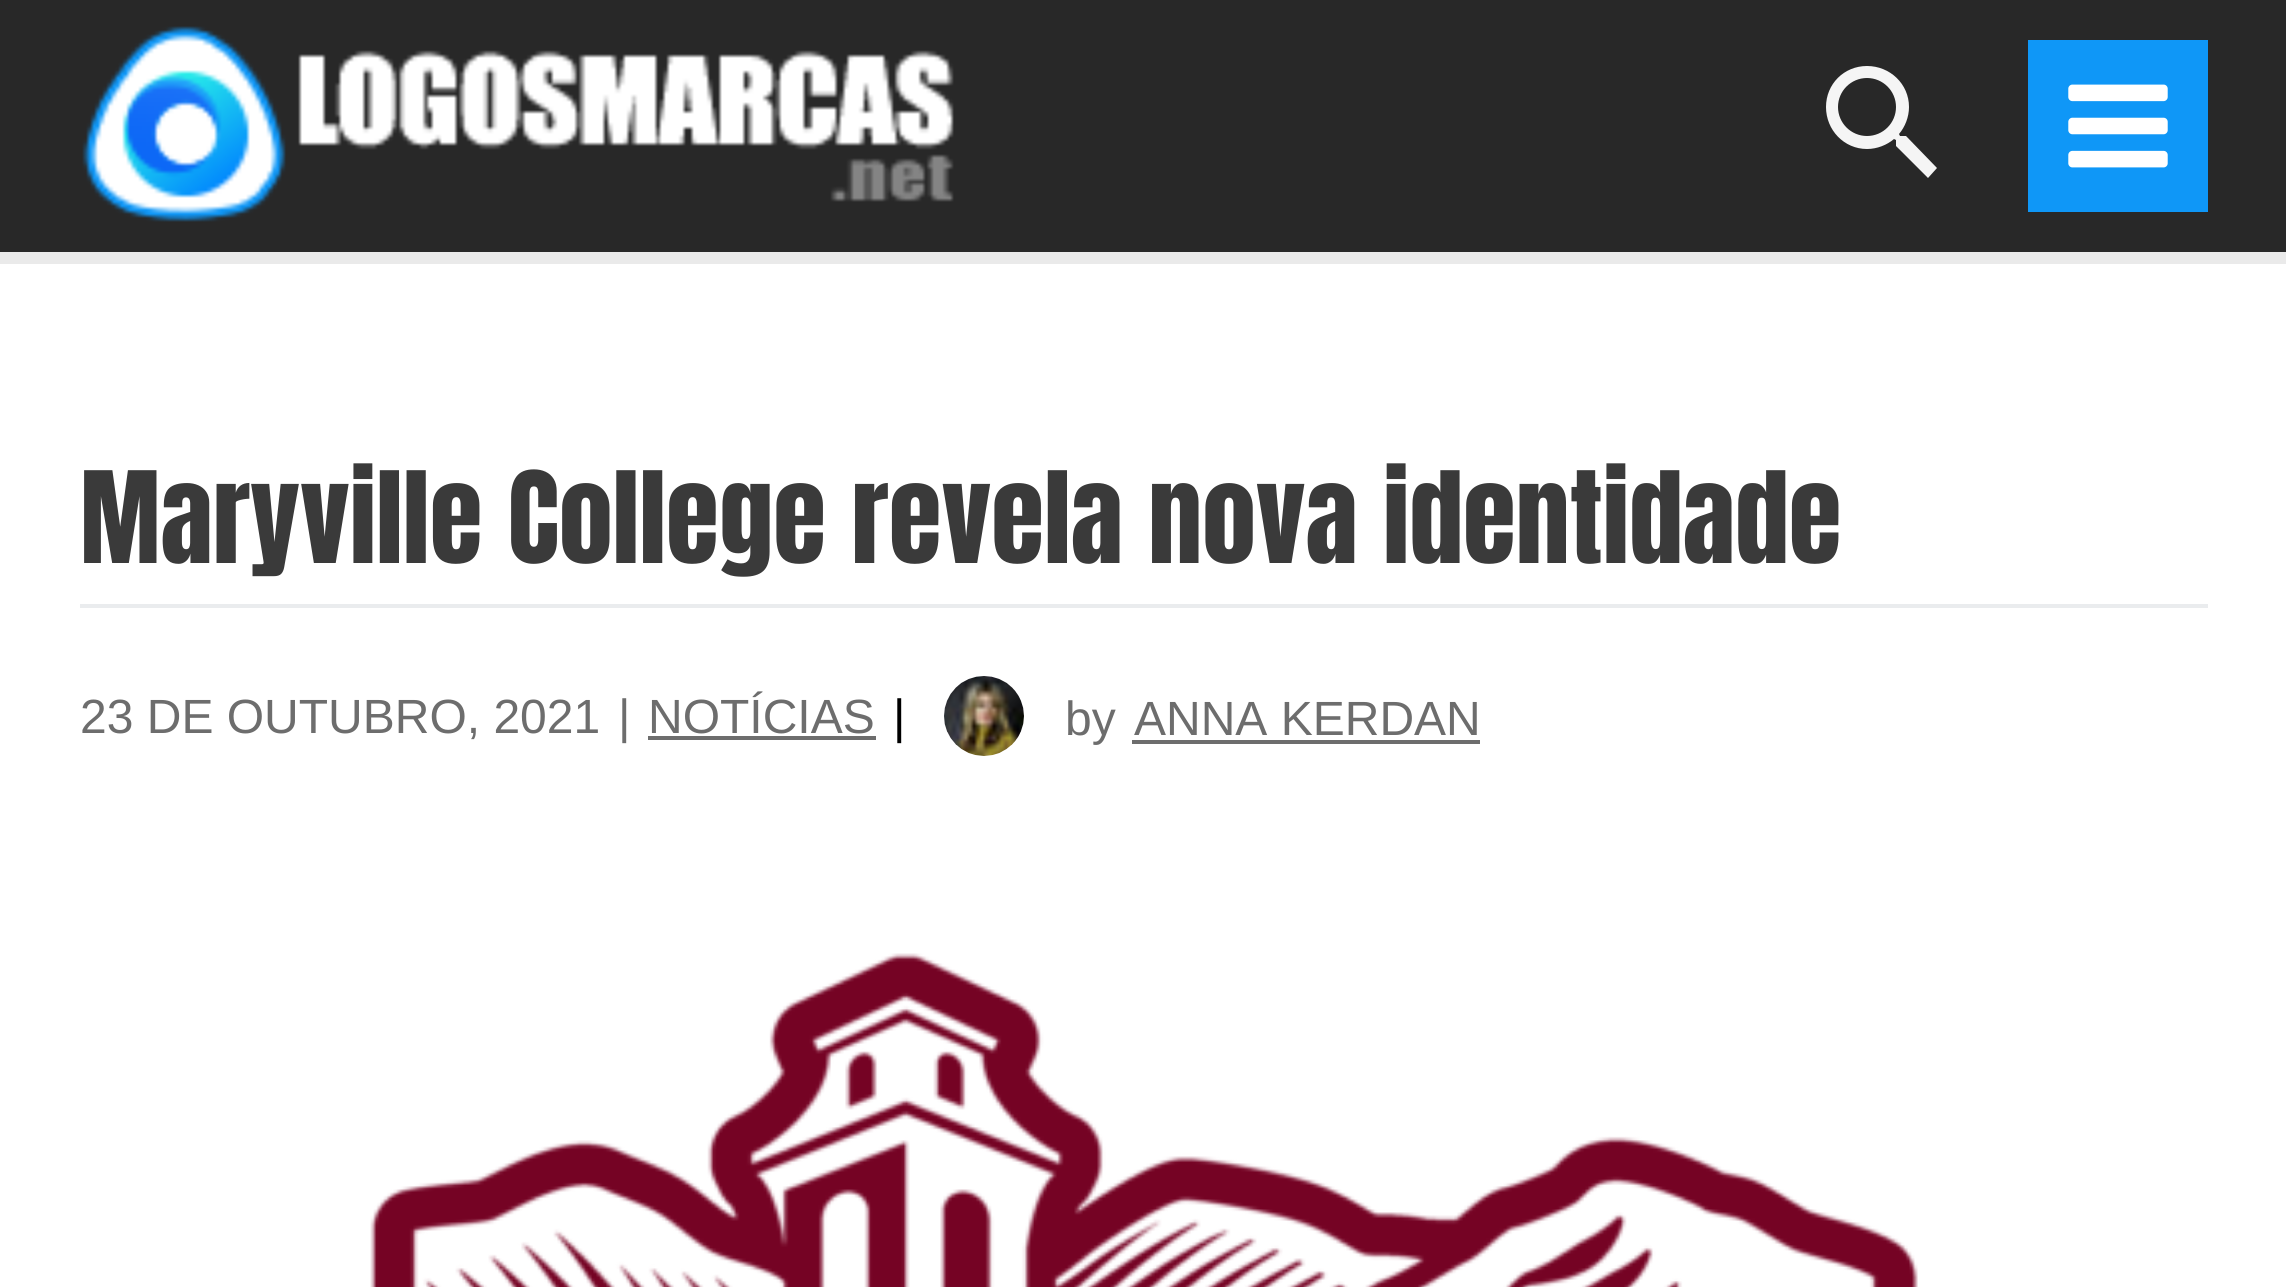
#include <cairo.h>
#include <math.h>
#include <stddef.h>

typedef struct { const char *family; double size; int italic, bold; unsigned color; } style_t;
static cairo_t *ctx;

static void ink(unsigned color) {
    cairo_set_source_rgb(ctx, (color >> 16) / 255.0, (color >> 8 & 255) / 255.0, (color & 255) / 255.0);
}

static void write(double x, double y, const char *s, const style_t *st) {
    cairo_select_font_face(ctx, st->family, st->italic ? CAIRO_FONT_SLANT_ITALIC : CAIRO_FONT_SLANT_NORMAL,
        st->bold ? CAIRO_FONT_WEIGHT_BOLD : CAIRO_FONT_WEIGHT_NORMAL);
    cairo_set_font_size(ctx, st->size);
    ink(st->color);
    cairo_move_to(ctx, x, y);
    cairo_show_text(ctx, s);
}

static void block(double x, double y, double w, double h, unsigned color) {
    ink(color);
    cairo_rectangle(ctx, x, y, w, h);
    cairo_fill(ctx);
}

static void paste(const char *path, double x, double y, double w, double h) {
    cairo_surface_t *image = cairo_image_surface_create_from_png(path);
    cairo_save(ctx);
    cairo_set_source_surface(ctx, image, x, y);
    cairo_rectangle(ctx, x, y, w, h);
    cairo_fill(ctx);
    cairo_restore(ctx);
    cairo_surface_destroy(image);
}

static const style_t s1 = {"Anton", 108, 0, 0, 0x3a3a3a};
static const style_t s2 = {"Liberation Sans", 48, 0, 0, 0x6d6d6d};
static const style_t s3 = {"Liberation Sans", 48, 0, 0, 0x000000};

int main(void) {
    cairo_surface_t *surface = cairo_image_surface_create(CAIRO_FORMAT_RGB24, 2286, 1287);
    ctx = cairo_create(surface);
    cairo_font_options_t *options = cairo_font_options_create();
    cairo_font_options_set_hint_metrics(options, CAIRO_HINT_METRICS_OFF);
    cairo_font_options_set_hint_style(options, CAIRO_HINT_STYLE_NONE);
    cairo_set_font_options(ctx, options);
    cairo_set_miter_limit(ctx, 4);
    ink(0xffffff);
    cairo_paint(ctx);
    block(0, 0, 2286, 252, 0x282828);
    block(0, 252, 2286, 12, 0xeaeaea);
    paste("pic1.png", 82, 26, 872, 196);
    ink(0xf5f5f5);
    cairo_new_path(ctx);
    cairo_move_to(ctx, 1906, 136);
    cairo_line_to(ctx, 1900, 136);
    cairo_line_to(ctx, 1899, 134);
    cairo_curve_to(ctx, 1905, 127, 1909, 117, 1909, 107);
    cairo_curve_to(ctx, 1909, 84, 1890, 66, 1867, 66);
    cairo_curve_to(ctx, 1844, 66, 1826, 84, 1826, 107);
    cairo_curve_to(ctx, 1826, 130, 1844, 149, 1867, 149);
    cairo_curve_to(ctx, 1877, 149, 1887, 145, 1894, 139);
    cairo_line_to(ctx, 1896, 140);
    cairo_line_to(ctx, 1896, 146);
    cairo_line_to(ctx, 1928, 178);
    cairo_line_to(ctx, 1937, 168);
    cairo_close_path(ctx);
    cairo_move_to(ctx, 1867, 136);
    cairo_curve_to(ctx, 1851, 136, 1838, 123, 1838, 107);
    cairo_curve_to(ctx, 1838, 91, 1851, 78, 1867, 78);
    cairo_curve_to(ctx, 1883, 78, 1896, 91, 1896, 107);
    cairo_curve_to(ctx, 1896, 123, 1883, 136, 1867, 136);
    cairo_close_path(ctx);
    cairo_fill(ctx);
    block(2028, 40, 180, 172, 0x0f97f7);
    paste("pic2.png", 2068, 84, 100, 84);
    block(80, 604, 2128, 4, 0xeaecee);
    write(80, 563, "Maryville College revela nova identidade", &s1);
    write(80, 733, "23 DE OUTUBRO, 2021", &s2);
    write(618, 733, "|", &s2);
    write(648, 733, "NOTÍCIAS", &s2);
    block(648, 736, 228, 4, 0x6d6d6d);
    write(893, 733, "|", &s3);
    paste("pic3.png", 944, 676, 80, 80);
    write(1065, 735, "by", &s2);
    write(1134, 735, "ANNA KERDAN", &s2);
    block(1132, 740, 348, 4, 0x6d6d6d);
    paste("pic4.png", 370, 953, 1548, 334);
    cairo_surface_write_to_png(surface, "screenshot.png");
    cairo_font_options_destroy(options);
    cairo_destroy(ctx);
    cairo_surface_destroy(surface);
    return 0;
}
